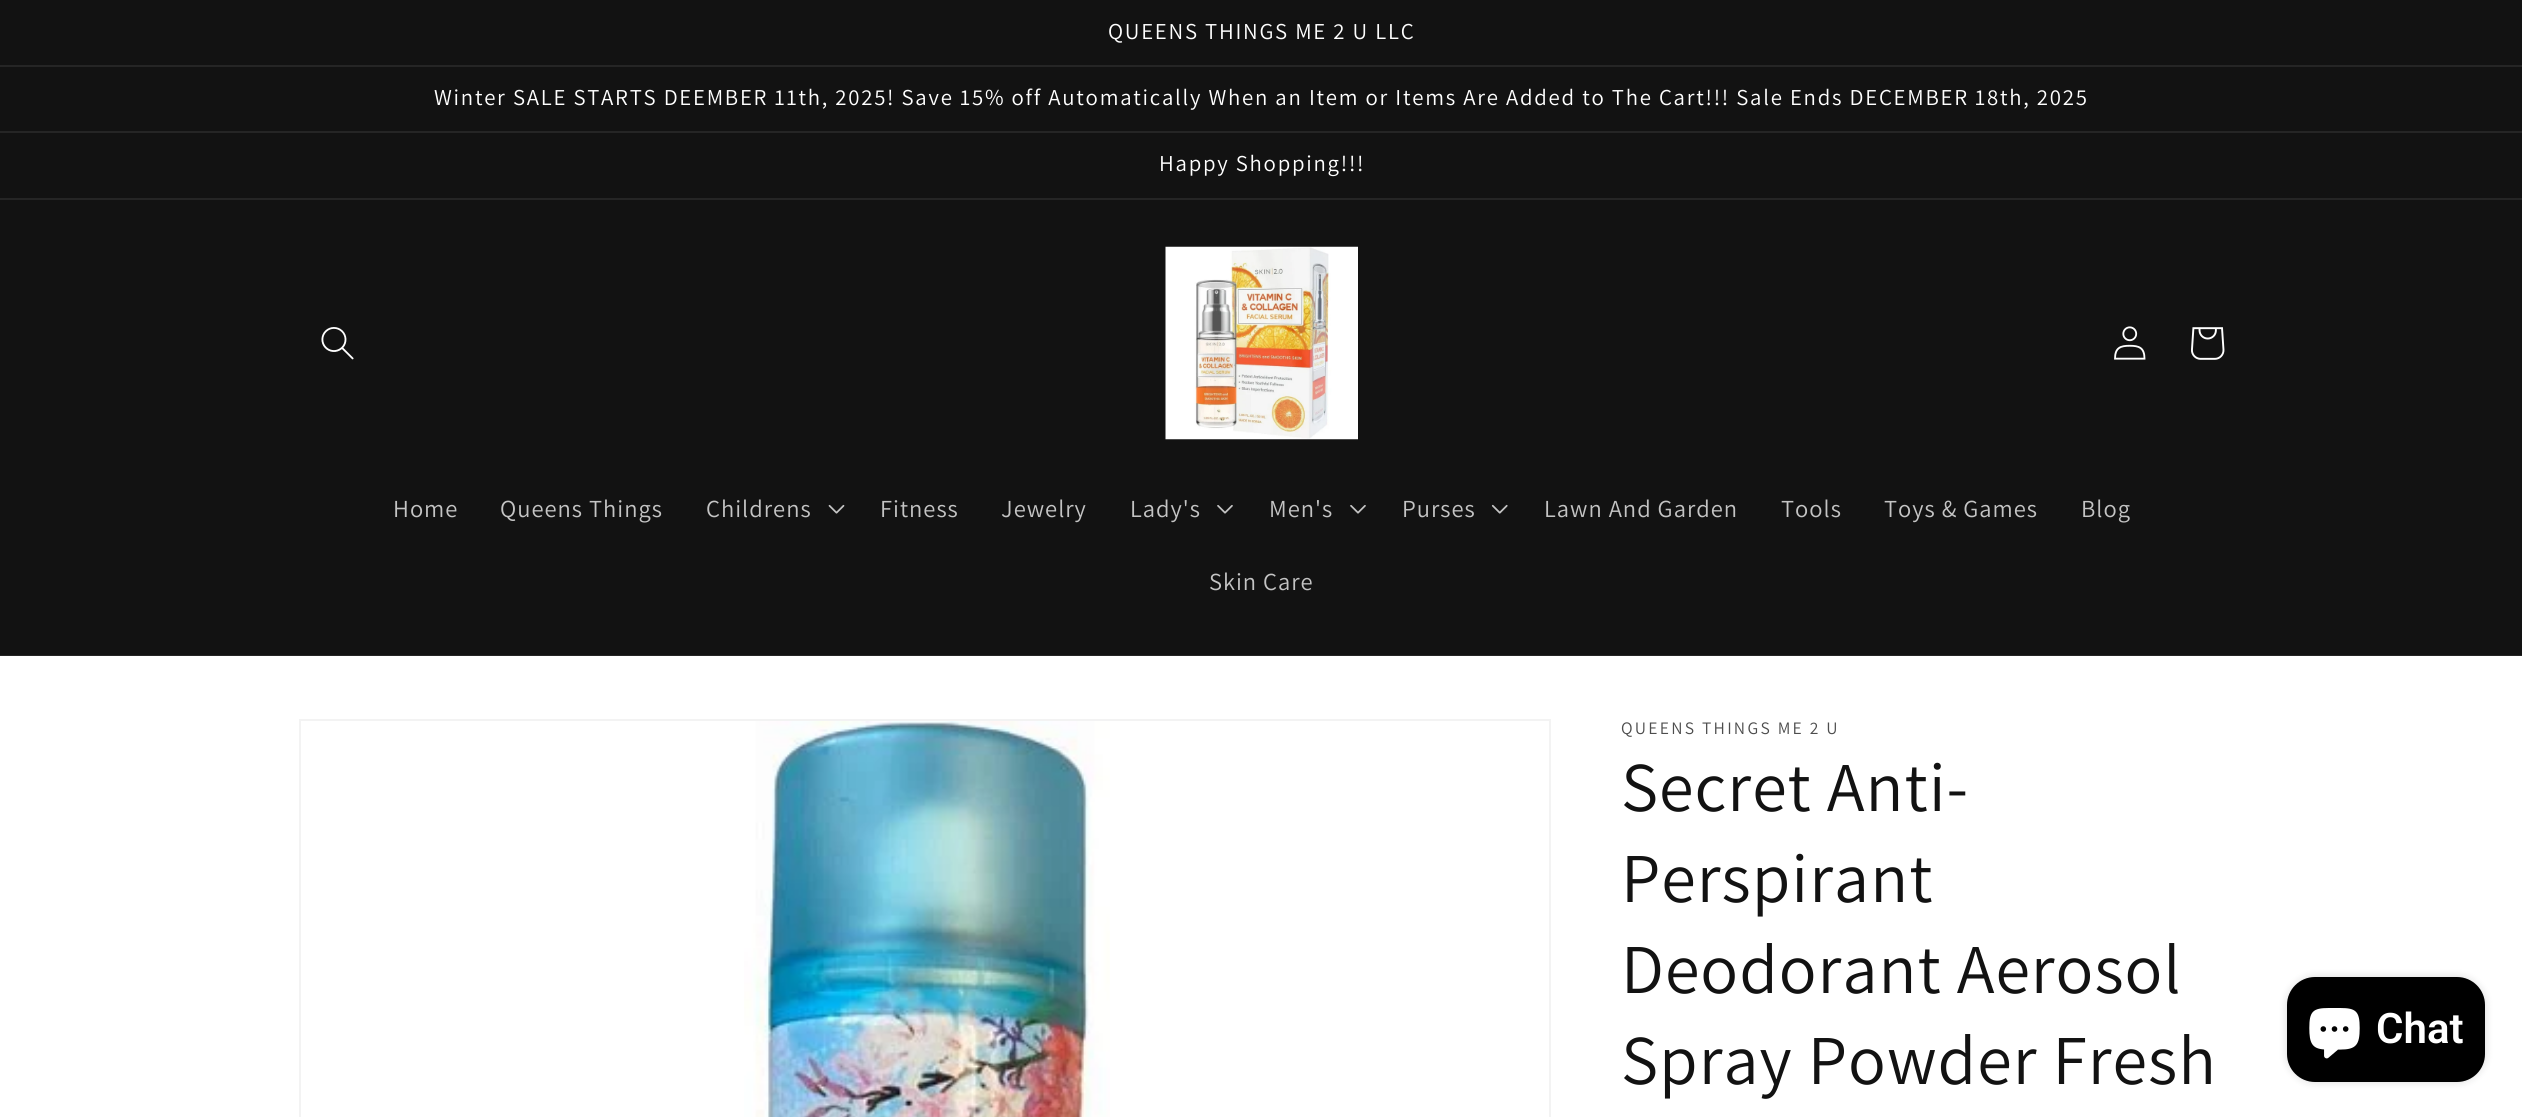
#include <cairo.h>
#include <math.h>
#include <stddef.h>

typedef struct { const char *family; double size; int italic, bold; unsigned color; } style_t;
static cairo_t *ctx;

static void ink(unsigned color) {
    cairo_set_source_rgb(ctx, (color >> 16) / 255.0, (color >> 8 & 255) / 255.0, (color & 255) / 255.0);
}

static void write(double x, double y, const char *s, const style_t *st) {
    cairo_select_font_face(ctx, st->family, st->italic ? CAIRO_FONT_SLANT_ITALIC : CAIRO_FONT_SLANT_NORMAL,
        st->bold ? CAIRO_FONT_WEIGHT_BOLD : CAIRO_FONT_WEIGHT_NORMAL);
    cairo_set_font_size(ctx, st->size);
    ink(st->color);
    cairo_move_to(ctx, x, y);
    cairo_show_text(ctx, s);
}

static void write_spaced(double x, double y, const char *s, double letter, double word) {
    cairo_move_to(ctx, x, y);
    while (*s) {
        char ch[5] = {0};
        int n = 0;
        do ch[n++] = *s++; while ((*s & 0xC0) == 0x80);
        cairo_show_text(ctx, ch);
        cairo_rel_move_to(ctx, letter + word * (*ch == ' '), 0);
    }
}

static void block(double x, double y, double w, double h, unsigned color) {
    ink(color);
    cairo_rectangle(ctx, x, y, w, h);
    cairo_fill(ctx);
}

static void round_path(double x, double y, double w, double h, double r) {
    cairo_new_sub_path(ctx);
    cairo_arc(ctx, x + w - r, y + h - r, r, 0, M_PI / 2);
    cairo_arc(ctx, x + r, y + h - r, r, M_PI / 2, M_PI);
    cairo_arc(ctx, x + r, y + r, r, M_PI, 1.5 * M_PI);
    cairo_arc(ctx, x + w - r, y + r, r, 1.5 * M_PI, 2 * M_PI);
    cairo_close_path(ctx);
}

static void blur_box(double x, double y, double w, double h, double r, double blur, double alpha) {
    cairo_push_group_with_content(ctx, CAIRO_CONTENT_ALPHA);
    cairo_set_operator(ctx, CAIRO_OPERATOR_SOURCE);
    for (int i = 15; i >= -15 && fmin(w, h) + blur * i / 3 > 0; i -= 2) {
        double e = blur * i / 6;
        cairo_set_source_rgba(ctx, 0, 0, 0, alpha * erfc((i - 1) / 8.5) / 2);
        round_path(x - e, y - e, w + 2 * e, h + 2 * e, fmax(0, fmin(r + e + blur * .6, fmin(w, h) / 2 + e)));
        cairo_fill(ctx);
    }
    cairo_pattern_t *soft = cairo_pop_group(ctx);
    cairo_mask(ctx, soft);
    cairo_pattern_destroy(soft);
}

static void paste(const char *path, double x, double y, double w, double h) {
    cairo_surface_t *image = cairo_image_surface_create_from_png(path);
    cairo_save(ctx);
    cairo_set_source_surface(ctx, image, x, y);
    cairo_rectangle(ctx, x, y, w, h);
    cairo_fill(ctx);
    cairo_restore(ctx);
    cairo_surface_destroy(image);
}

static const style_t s1 = {"Roboto SemiBold", 42, 0, 0, 0xffffff};

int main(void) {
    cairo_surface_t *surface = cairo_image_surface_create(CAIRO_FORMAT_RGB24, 2522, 1117);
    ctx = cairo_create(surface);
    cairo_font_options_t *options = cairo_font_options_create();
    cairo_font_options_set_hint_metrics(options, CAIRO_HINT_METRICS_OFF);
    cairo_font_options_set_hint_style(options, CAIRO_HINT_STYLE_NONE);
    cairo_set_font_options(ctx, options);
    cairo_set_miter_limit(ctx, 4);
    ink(0xffffff);
    cairo_paint(ctx);
    block(0, 0, 2522, 65, 0x121212);
    block(0, 65, 2522, 2, 0x252525);
    cairo_select_font_face(ctx, "Assistant", CAIRO_FONT_SLANT_NORMAL, CAIRO_FONT_WEIGHT_NORMAL);
    cairo_set_font_size(ctx, 22.75);
    ink(0xffffff);
    write_spaced(1108, 39, "QUEENS THINGS ME 2 U LLC", 1.75, 0);
    block(0, 67, 2522, 64, 0x121212);
    block(0, 131, 2522, 2, 0x252525);
    ink(0xffffff);
    write_spaced(434, 105, "Winter SALE STARTS DEEMBER 11th, 2025! Save 15% off Automatically When an Item or Items Are Added to The Cart!!! Sale Ends DECEMBER 18th, 2025", 1.75, 0);
    block(0, 133, 2522, 65, 0x121212);
    block(0, 198, 2522, 2, 0x252525);
    ink(0xffffff);
    write_spaced(1159, 171, "Happy Shopping!!!", 1.75, 0);
    block(0, 200, 2522, 455, 0x121212);
    block(0, 655, 2522, 1, 0x252525);
    paste("pic1.png", 321, 327, 33, 33);
    paste("pic2.png", 1165, 246, 193, 194);
    paste("pic3.png", 2114, 326, 32, 34);
    paste("pic4.png", 2191, 327, 34, 33);
    cairo_set_font_size(ctx, 24.5);
    ink(0xc4c4c4);
    write_spaced(393, 517, "Home", 1, 0);
    write_spaced(500, 517, "Queens Things", 1, 0);
    write_spaced(706, 517, "Childrens", 1, 0);
    paste("pic5.png", 828, 504, 17, 10);
    write_spaced(880, 517, "Fitness", 1, 0);
    write_spaced(1001, 517, "Jewelry", 1, 0);
    write_spaced(1130, 517, "Lady's", 1, 0);
    paste("pic6.png", 1217, 505, 16, 9);
    write_spaced(1269, 517, "Men's", 1, 0);
    paste("pic6.png", 1350, 505, 16, 9);
    write_spaced(1402, 517, "Purses", 1, 0);
    paste("pic7.png", 1491, 504, 17, 10);
    write_spaced(1544, 517, "Lawn And Garden", 1, 0);
    write_spaced(1781, 517, "Tools", 1, 0);
    write_spaced(1884, 517, "Toys & Games", 1, 0);
    write_spaced(2081, 517, "Blog", 1, 0);
    write_spaced(1209, 590, "Skin Care", 1, 0);
    cairo_rectangle(ctx, 300, 720, 1250, 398);
    ink(0xf3f3f3);
    cairo_stroke(ctx);
    paste("pic8.png", 744, 721, 366, 396);
    cairo_set_font_size(ctx, 17.5);
    ink(0x4d4d4d);
    write_spaced(1621, 734, "QUEENS THINGS ME 2 U", 2.25, 0);
    cairo_set_font_size(ctx, 70);
    ink(0x121212);
    write_spaced(1621, 811, "Secret Anti-", 1, 0);
    write_spaced(1621, 902, "Perspirant", 1, 0);
    write_spaced(1621, 993, "Deodorant Aerosol", 1, 0);
    write_spaced(1621, 1084, "Spray Powder Fresh", 1, 0);
    ink(0x000000);
    blur_box(2287, 977, 198, 105, 28, 4.5, 0.15);
    ink(0x000000);
    round_path(2287, 977, 198, 105, 28);
    cairo_fill(ctx);
    paste("pic9.png", 2309, 1008, 51, 51);
    write(2376, 1043, "Chat", &s1);
    cairo_surface_write_to_png(surface, "screenshot.png");
    cairo_font_options_destroy(options);
    cairo_destroy(ctx);
    cairo_surface_destroy(surface);
    return 0;
}
